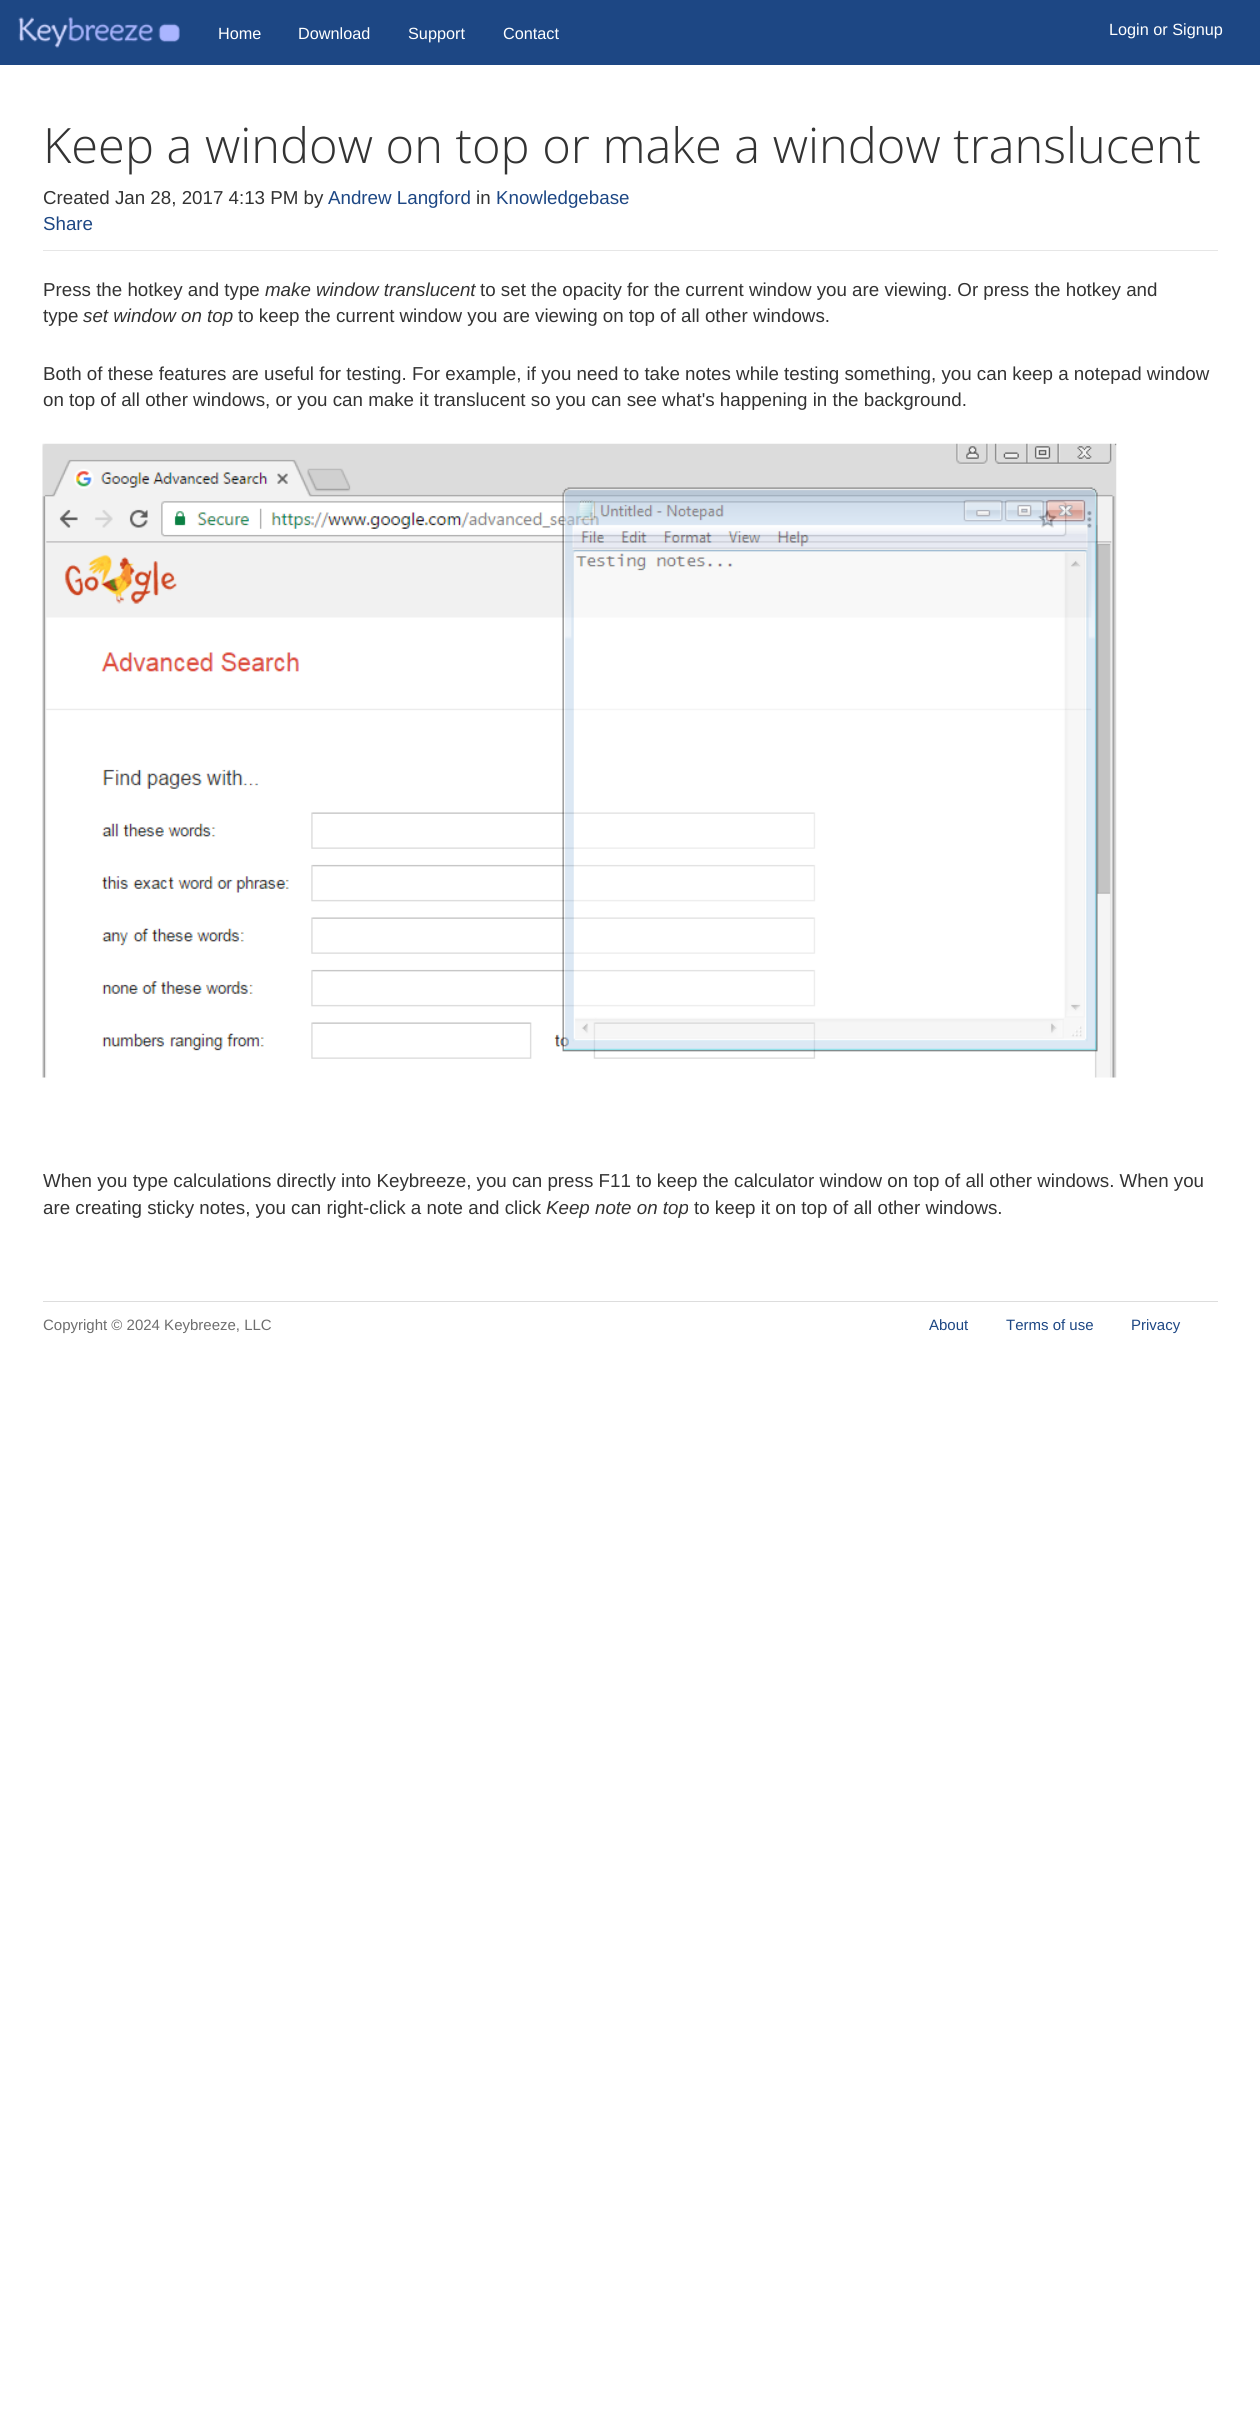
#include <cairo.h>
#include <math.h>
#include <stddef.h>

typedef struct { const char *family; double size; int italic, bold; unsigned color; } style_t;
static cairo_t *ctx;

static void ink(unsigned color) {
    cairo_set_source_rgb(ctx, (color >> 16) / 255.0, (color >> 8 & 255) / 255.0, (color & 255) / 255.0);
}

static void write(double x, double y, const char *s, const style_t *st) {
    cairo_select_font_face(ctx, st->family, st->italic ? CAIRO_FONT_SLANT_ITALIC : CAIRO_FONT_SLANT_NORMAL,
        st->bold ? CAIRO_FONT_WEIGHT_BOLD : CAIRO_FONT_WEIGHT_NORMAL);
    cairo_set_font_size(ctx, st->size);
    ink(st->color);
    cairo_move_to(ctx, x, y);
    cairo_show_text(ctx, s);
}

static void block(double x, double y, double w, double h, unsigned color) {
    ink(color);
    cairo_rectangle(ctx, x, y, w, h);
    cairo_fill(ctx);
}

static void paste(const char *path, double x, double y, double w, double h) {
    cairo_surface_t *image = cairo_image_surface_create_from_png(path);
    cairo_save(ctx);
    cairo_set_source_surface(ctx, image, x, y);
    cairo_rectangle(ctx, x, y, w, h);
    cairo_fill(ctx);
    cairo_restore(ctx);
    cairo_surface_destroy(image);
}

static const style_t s1 = {"Liberation Sans", 16.25, 0, 0, 0xffffff};
static const style_t s2 = {"Open Sans Light", 48.75, 0, 0, 0x333333};
static const style_t s3 = {"Liberation Sans", 18.75, 0, 0, 0x333333};
static const style_t s4 = {"Liberation Sans", 18.75, 0, 0, 0x1d4784};
static const style_t s5 = {"Liberation Sans", 18.75, 1, 0, 0x333333};
static const style_t s6 = {"Liberation Sans", 15, 0, 0, 0x6e6e6e};
static const style_t s7 = {"Liberation Sans", 15, 0, 0, 0x1d4784};

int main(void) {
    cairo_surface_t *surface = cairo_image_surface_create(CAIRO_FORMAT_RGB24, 1260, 2429);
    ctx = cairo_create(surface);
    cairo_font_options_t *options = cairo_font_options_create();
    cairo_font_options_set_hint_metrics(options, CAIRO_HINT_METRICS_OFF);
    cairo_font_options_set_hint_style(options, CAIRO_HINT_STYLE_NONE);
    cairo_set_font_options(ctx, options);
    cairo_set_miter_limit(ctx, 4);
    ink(0xffffff);
    cairo_paint(ctx);
    block(0, 0, 1260, 65, 0x1d4784);
    paste("pic1.png", 18, 17, 162, 31);
    write(218, 39, "Home", &s1);
    write(298, 39, "Download", &s1);
    write(408, 39, "Support", &s1);
    write(503, 39, "Contact", &s1);
    write(1109, 35, "Login or Signup", &s1);
    block(43, 250, 1175, 1, 0xe6e6e6);
    write(43, 163, "Keep a window on top or make a window translucent", &s2);
    write(43, 204, "Created Jan 28, 2017 4:13 PM by", &s3);
    write(328, 204, "Andrew Langford", &s4);
    write(476, 204, "in", &s3);
    write(496, 204, "Knowledgebase", &s4);
    write(43, 230, "Share", &s4);
    write(43, 296, "Press the hotkey and type", &s3);
    write(265, 296, "make window translucent", &s5);
    write(480, 296, "to set the opacity for the current window you are viewing. Or press the hotkey and", &s3);
    write(43, 322, "type", &s3);
    write(83, 322, "set window on top", &s5);
    write(238, 322, "to keep the current window you are viewing on top of all other windows.", &s3);
    write(43, 380, "Both of these features are useful for testing. For example, if you need to take notes while testing something, you can keep a notepad window", &s3);
    write(43, 406, "on top of all other windows, or you can make it translucent so you can see what's happening in the background.", &s3);
    paste("pic2.png", 42, 443, 1075, 635);
    write(43, 1187, "When you type calculations directly into Keybreeze, you can press F11 to keep the calculator window on top of all other windows. When you", &s3);
    write(43, 1214, "are creating sticky notes, you can right-click a note and click", &s3);
    write(546, 1214, "Keep note on top", &s5);
    write(694, 1214, "to keep it on top of all other windows.", &s3);
    block(43, 1301, 1175, 1, 0xdddddd);
    write(43, 1330, "Copyright © 2024 Keybreeze, LLC", &s6);
    write(929, 1330, "About", &s7);
    write(1006, 1330, "Terms of use", &s7);
    write(1131, 1330, "Privacy", &s7);
    cairo_surface_write_to_png(surface, "screenshot.png");
    cairo_font_options_destroy(options);
    cairo_destroy(ctx);
    cairo_surface_destroy(surface);
    return 0;
}
